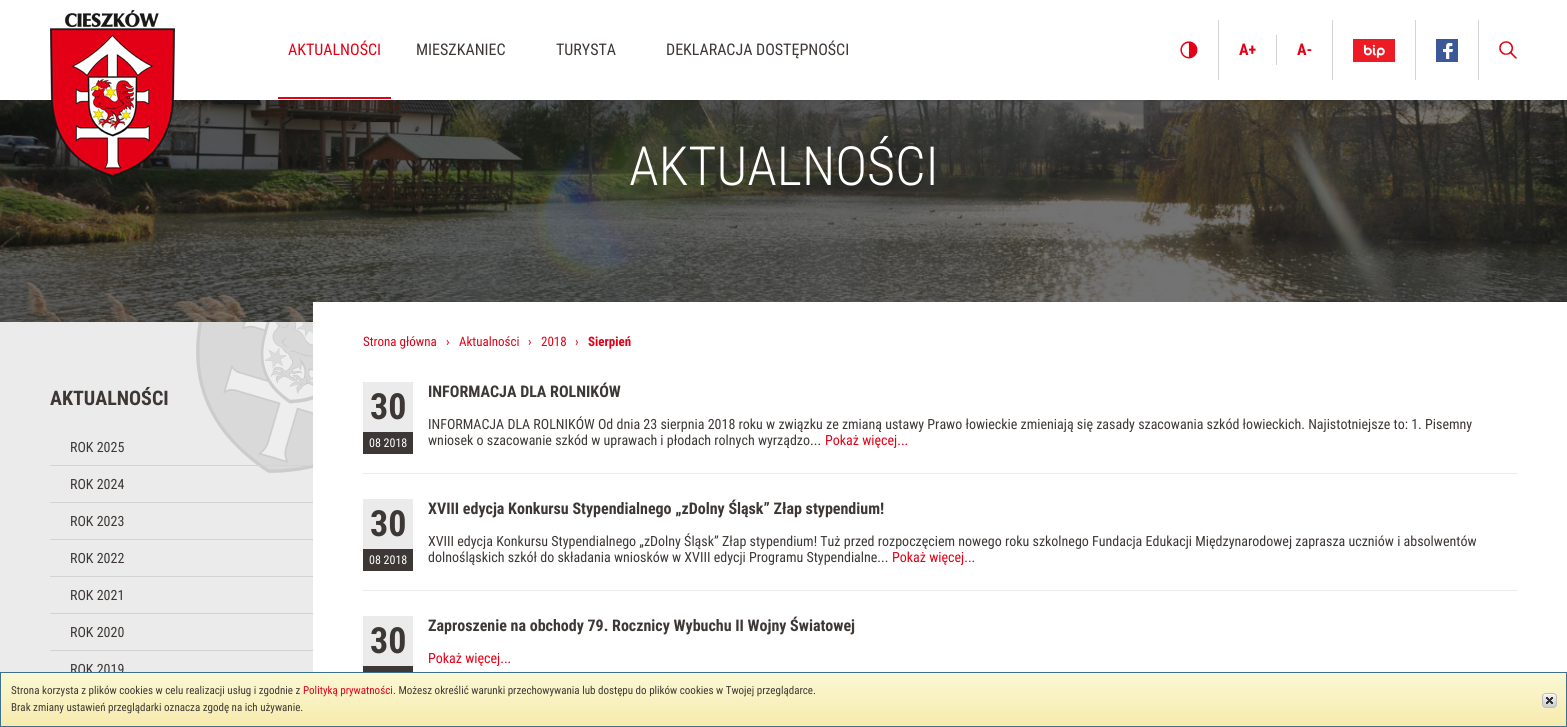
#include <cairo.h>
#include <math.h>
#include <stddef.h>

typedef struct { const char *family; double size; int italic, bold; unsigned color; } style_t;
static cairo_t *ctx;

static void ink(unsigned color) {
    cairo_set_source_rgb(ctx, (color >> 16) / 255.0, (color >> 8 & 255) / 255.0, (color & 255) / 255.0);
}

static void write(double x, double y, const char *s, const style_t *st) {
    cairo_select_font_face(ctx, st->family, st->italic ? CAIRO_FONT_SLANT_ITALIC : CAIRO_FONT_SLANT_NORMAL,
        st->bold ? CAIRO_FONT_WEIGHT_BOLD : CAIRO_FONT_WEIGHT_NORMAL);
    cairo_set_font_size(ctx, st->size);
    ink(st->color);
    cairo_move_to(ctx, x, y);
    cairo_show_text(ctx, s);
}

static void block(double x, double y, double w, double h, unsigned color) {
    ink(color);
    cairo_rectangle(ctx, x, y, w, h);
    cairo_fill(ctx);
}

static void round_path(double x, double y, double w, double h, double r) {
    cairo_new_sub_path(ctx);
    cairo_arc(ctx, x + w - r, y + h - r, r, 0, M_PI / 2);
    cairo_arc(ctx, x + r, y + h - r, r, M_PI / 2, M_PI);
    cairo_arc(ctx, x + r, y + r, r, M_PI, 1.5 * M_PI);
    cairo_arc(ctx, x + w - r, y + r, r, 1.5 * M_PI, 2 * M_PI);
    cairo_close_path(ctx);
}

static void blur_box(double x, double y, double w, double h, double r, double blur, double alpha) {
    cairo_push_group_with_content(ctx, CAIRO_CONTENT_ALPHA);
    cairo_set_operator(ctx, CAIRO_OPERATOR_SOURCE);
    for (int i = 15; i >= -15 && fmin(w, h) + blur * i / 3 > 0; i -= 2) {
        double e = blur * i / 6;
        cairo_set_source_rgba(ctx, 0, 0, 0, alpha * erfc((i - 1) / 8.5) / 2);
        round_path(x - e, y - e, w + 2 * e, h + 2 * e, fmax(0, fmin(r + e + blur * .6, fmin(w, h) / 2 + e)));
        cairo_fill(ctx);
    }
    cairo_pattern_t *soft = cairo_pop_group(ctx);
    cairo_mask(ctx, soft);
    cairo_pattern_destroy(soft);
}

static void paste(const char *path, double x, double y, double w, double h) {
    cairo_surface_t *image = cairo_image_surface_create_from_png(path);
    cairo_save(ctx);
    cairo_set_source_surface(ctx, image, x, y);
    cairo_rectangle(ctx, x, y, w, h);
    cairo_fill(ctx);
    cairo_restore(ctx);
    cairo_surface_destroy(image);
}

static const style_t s1 = {"Roboto Condensed", 16, 0, 0, 0xe30016};
static const style_t s2 = {"Roboto Condensed", 16, 0, 0, 0x3d3835};
static const style_t s3 = {"Roboto Condensed", 16, 0, 1, 0xe30016};
static const style_t s4 = {"Roboto Condensed Light", 54, 0, 0, 0xffffff};
static const style_t s5 = {"Roboto Condensed", 13, 0, 0, 0xe30016};
static const style_t s6 = {"Roboto Condensed", 13, 0, 1, 0xe30016};
static const style_t s7 = {"Roboto Condensed", 20, 0, 1, 0x3d3835};
static const style_t s8 = {"Roboto Condensed", 14, 0, 0, 0x3d3835};
static const style_t s9 = {"Roboto Condensed", 36, 0, 1, 0x3d3835};
static const style_t s10 = {"Roboto Condensed", 12, 0, 0, 0xffffff};
static const style_t s11 = {"Roboto Condensed", 16, 0, 1, 0x3d3835};
static const style_t s12 = {"Roboto Condensed", 14, 0, 0, 0xe30016};
static const style_t s13 = {"Roboto Condensed", 11, 0, 0, 0x3d3835};
static const style_t s14 = {"Roboto Condensed", 11, 0, 0, 0xe30016};

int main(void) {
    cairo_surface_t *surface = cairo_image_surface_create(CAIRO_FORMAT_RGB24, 1567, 727);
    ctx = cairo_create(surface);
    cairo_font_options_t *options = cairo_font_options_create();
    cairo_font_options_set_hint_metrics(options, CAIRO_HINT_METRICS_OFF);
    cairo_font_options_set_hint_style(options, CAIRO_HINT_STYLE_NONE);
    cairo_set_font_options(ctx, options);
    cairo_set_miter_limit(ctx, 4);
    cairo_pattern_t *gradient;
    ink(0xffffff);
    cairo_paint(ctx);
    paste("pic6.png", 0, 100, 1567, 222);
    ink(0x000000);
    blur_box(0, 1, 1567, 100, 0, 1, 0.08);
    block(0, 0, 1567, 100, 0xffffff);
    paste("pic1.png", 50, 10, 125, 167);
    block(278, 97, 113, 2, 0xe30016);
    write(288, 55, "AKTUALNOŚCI", &s1);
    write(416, 55, "MIESZKANIEC", &s2);
    write(556, 55, "TURYSTA", &s2);
    write(666, 55, "DEKLARACJA DOSTĘPNOŚCI", &s2);
    block(1218, 20, 1, 60, 0xd3d3d3);
    paste("pic2.png", 1180, 41, 18, 18);
    block(1276, 35, 1, 30, 0xd3d3d3);
    write(1239, 55, "A+", &s3);
    block(1332, 20, 1, 60, 0xd3d3d3);
    write(1297, 55, "A-", &s3);
    block(1415, 20, 1, 60, 0xd3d3d3);
    paste("pic3.png", 1353, 39, 42, 23);
    block(1478, 20, 1, 60, 0xd3d3d3);
    paste("pic4.png", 1436, 39, 22, 23);
    paste("pic5.png", 1499, 41, 18, 18);
    write(629, 185, "AKTUALNOŚCI", &s4);
    block(313, 302, 1254, 20, 0xffffff);
    block(0, 322, 313, 350, 0xebebeb);
    paste("pic7.png", 196, 322, 117, 151);
    write(363, 346, "Strona główna", &s5);
    write(446, 346, "›", &s5);
    write(459, 346, "Aktualności", &s5);
    write(528, 346, "›", &s5);
    write(541, 346, "2018", &s5);
    write(575, 346, "›", &s5);
    write(588, 346, "Sierpień", &s6);
    write(50, 405, "AKTUALNOŚCI", &s7);
    block(50, 465, 263, 1, 0xd3d3d3);
    write(70, 452, "ROK 2025", &s8);
    block(50, 502, 263, 1, 0xd3d3d3);
    write(70, 489, "ROK 2024", &s8);
    block(50, 539, 263, 1, 0xd3d3d3);
    write(70, 526, "ROK 2023", &s8);
    block(50, 576, 263, 1, 0xd3d3d3);
    write(70, 563, "ROK 2022", &s8);
    block(50, 613, 263, 1, 0xd3d3d3);
    write(70, 600, "ROK 2021", &s8);
    block(50, 650, 263, 1, 0xd3d3d3);
    write(70, 637, "ROK 2020", &s8);
    write(70, 674, "ROK 2019", &s8);
    block(363, 473, 1154, 1, 0xebebeb);
    block(363, 382, 50, 50, 0xebebeb);
    write(370, 419, "30", &s9);
    block(363, 432, 50, 22, 0x3d3835);
    write(369, 447, "08 2018", &s10);
    write(428, 397, "INFORMACJA DLA ROLNIKÓW", &s11);
    write(428, 429, "INFORMACJA DLA ROLNIKÓW Od dnia 23 sierpnia 2018 roku w związku ze zmianą ustawy Prawo łowieckie zmieniają się zasady szacowania szkód łowieckich. Najistotniejsze to: 1. Pisemny", &s8);
    write(428, 445, "wniosek o szacowanie szkód w uprawach i płodach rolnych wyrządzo...", &s8);
    write(825, 445, "Pokaż więcej...", &s12);
    block(363, 590, 1154, 1, 0xebebeb);
    block(363, 499, 50, 50, 0xebebeb);
    write(370, 536, "30", &s9);
    block(363, 549, 50, 22, 0x3d3835);
    write(369, 564, "08 2018", &s10);
    write(428, 514, "XVIII edycja Konkursu Stypendialnego „zDolny Śląsk” Złap stypendium!", &s11);
    write(428, 546, "XVIII edycja Konkursu Stypendialnego „zDolny Śląsk” Złap stypendium! Tuż przed rozpoczęciem nowego roku szkolnego Fundacja Edukacji Międzynarodowej zaprasza uczniów i absolwentów", &s8);
    write(428, 562, "dolnośląskich szkół do składania wniosków w XVIII edycji Programu Stypendialne...", &s8);
    write(892, 562, "Pokaż więcej...", &s12);
    block(363, 616, 50, 50, 0xebebeb);
    write(370, 653, "30", &s9);
    block(363, 666, 50, 6, 0x3d3835);
    write(428, 631, "Zaproszenie na obchody 79. Rocznicy Wybuchu II Wojny Światowej", &s11);
    write(428, 663, "Pokaż więcej...", &s12);
    gradient = cairo_pattern_create_linear(784, 673, 784, 726);
    cairo_pattern_add_color_stop_rgba(gradient, 0, 0.98, 0.973, 0.831, 1);
    cairo_pattern_add_color_stop_rgba(gradient, 1, 0.969, 0.918, 0.678, 1);
    cairo_set_source(ctx, gradient);
    cairo_pattern_destroy(gradient);
    cairo_rectangle(ctx, 1, 673, 1565, 53);
    cairo_fill(ctx);
    cairo_rectangle(ctx, 0.5, 672.5, 1566, 54);
    ink(0x3b718d);
    cairo_set_line_width(ctx, 1);
    cairo_stroke(ctx);
    write(11, 694, "Strona korzysta z plików cookies w celu realizacji usług i zgodnie z", &s13);
    write(303, 694, "Polityką prywatności", &s14);
    write(393, 694, ". Możesz określić warunki przechowywania lub dostępu do plików cookies w Twojej przeglądarce.", &s13);
    write(11, 711, "Brak zmiany ustawień przeglądarki oznacza zgodę na ich używanie.", &s13);
    paste("pic8.png", 1542, 693, 15, 15);
    cairo_surface_write_to_png(surface, "screenshot.png");
    cairo_font_options_destroy(options);
    cairo_destroy(ctx);
    cairo_surface_destroy(surface);
    return 0;
}
